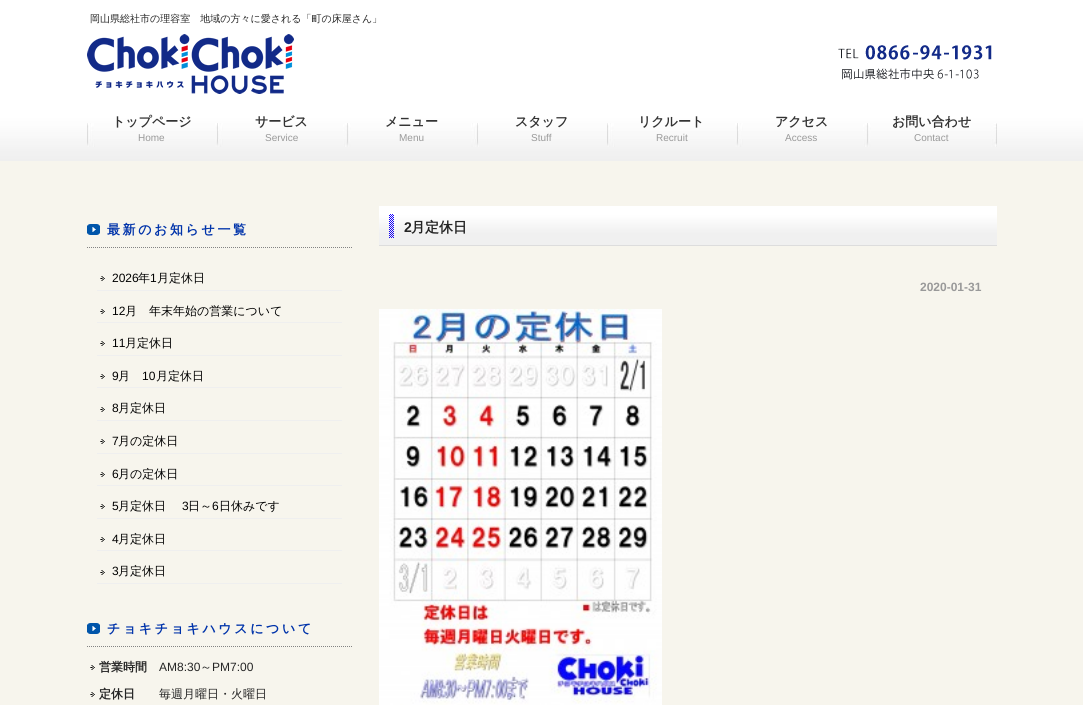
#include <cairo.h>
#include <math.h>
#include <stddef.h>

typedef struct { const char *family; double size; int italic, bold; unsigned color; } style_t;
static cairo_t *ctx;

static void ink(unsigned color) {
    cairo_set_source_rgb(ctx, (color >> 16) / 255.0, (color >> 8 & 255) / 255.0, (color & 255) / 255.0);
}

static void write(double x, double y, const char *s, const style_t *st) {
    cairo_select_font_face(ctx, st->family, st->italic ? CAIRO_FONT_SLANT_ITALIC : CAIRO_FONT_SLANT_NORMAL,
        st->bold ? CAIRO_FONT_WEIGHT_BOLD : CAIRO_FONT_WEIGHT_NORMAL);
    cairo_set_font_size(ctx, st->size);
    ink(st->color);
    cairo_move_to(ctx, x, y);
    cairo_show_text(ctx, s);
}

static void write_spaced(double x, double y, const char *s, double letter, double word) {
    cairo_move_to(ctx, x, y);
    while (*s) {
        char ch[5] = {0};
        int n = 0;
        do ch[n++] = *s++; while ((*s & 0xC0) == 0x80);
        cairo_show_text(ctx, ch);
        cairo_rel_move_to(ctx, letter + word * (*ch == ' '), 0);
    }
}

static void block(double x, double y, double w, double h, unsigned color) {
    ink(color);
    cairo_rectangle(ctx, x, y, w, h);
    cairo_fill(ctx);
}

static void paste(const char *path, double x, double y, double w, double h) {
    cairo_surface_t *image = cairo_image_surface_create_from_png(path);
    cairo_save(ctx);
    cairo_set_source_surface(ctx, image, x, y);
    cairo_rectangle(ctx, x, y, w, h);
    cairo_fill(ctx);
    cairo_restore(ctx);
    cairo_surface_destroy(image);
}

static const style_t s1 = {"WenQuanYi Zen Hei Medium", 10, 0, 0, 0x252525};
static const style_t s2 = {"WenQuanYi Zen Hei", 13, 0, 1, 0x333333};
static const style_t s3 = {"Liberation Sans", 10, 0, 0, 0x999999};
static const style_t s4 = {"Liberation Sans", 12, 0, 0, 0x000000};
static const style_t s5 = {"WenQuanYi Zen Hei Medium", 12, 0, 0, 0x000000};
static const style_t s6 = {"WenQuanYi Zen Hei", 12, 0, 1, 0x252525};
static const style_t s7 = {"Liberation Sans", 12, 0, 0, 0x252525};
static const style_t s8 = {"WenQuanYi Zen Hei Medium", 12, 0, 0, 0x252525};
static const style_t s9 = {"Liberation Sans", 14, 0, 1, 0x252525};
static const style_t s10 = {"WenQuanYi Zen Hei", 14, 0, 1, 0x252525};
static const style_t s11 = {"Liberation Sans", 12, 0, 1, 0x999999};

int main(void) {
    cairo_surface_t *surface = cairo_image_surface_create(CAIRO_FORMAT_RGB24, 1083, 705);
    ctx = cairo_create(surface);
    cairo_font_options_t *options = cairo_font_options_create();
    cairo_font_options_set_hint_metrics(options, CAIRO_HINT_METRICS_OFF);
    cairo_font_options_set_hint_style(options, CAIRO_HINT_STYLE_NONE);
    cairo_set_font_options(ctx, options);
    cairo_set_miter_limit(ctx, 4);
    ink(0xf7f5ed);
    cairo_paint(ctx);
    paste("pic1.png", 0, 0, 1083, 161);
    write(90, 22, "岡山県総社市の理容室　地域の方々に愛される「町の床屋さん」", &s1);
    paste("pic2.png", 87, 34, 207, 60);
    paste("pic3.png", 838, 45, 154, 35);
    paste("pic4.png", 87, 123, 910, 24);
    write(112, 126, "トップページ", &s2);
    write(138, 141, "Home", &s3);
    write(255, 126, "サービス", &s2);
    write(265, 141, "Service", &s3);
    write(385, 126, "メニュー", &s2);
    write(399, 141, "Menu", &s3);
    write(515, 126, "スタッフ", &s2);
    write(531, 141, "Stuff", &s3);
    write(638, 126, "リクルート", &s2);
    write(656, 141, "Recruit", &s3);
    write(775, 126, "アクセス", &s2);
    write(785, 141, "Access", &s3);
    write(892, 126, "お問い合わせ", &s2);
    write(914, 141, "Contact", &s3);
    paste("pic5.png", 87, 224, 13, 11);
    cairo_new_path(ctx);
    cairo_move_to(ctx, 87, 247.5);
    cairo_line_to(ctx, 352, 247.5);
    ink(0x838383);
    cairo_set_line_width(ctx, 1);
    cairo_set_dash(ctx, (double[]){1, 1}, 2, 0);
    cairo_stroke(ctx);
    cairo_select_font_face(ctx, "WenQuanYi Zen Hei", CAIRO_FONT_SLANT_NORMAL, CAIRO_FONT_WEIGHT_BOLD);
    cairo_set_font_size(ctx, 13);
    ink(0x0033aa);
    write_spaced(107, 234, "最新のお知らせ一覧", 2.6, 0);
    block(97, 290, 245, 1, 0xefefef);
    paste("pic6.png", 100, 276, 5, 5);
    write(112, 282, "2026", &s4);
    write(138, 282, "年", &s5);
    write(150, 282, "1", &s4);
    write(157, 282, "月定休日", &s5);
    block(97, 322, 245, 1, 0xefefef);
    paste("pic6.png", 100, 309, 5, 5);
    write(112, 315, "12", &s4);
    write(125, 315, "月　年末年始の営業について", &s5);
    block(97, 355, 245, 1, 0xefefef);
    paste("pic6.png", 100, 341, 5, 5);
    write(112, 347, "11", &s4);
    write(125, 347, "月定休日", &s5);
    block(97, 387, 245, 1, 0xefefef);
    paste("pic6.png", 100, 374, 5, 5);
    write(112, 380, "9", &s4);
    write(118, 380, "月", &s5);
    write(142, 380, "10", &s4);
    write(156, 380, "月定休日", &s5);
    block(97, 420, 245, 1, 0xefefef);
    paste("pic6.png", 100, 407, 5, 5);
    write(112, 412, "8", &s4);
    write(118, 412, "月定休日", &s5);
    block(97, 453, 245, 1, 0xefefef);
    paste("pic6.png", 100, 439, 5, 5);
    write(112, 445, "7", &s4);
    write(118, 445, "月の定休日", &s5);
    block(97, 485, 245, 1, 0xefefef);
    paste("pic6.png", 100, 472, 5, 5);
    write(112, 478, "6", &s4);
    write(118, 478, "月の定休日", &s5);
    block(97, 518, 245, 1, 0xefefef);
    paste("pic6.png", 100, 504, 5, 5);
    write(112, 510, "5", &s4);
    write(118, 510, "月定休日", &s5);
    write(182, 510, "3", &s4);
    write(188, 510, "日～", &s5);
    write(212, 510, "6", &s4);
    write(219, 510, "日休みです", &s5);
    block(97, 550, 245, 1, 0xefefef);
    paste("pic6.png", 100, 537, 5, 5);
    write(112, 543, "4", &s4);
    write(118, 543, "月定休日", &s5);
    block(97, 583, 245, 1, 0xefefef);
    paste("pic6.png", 100, 570, 5, 5);
    write(112, 575, "3", &s4);
    write(118, 575, "月定休日", &s5);
    paste("pic5.png", 87, 623, 13, 11);
    cairo_new_path(ctx);
    cairo_move_to(ctx, 87, 646.5);
    cairo_line_to(ctx, 352, 646.5);
    ink(0x838383);
    cairo_stroke(ctx);
    cairo_select_font_face(ctx, "WenQuanYi Zen Hei", CAIRO_FONT_SLANT_NORMAL, CAIRO_FONT_WEIGHT_BOLD);
    cairo_set_font_size(ctx, 13);
    ink(0x0033aa);
    write_spaced(107, 633, "チョキチョキハウスについて", 2.6, 0);
    paste("pic6.png", 90, 665, 5, 5);
    write(99, 671, "営業時間", &s6);
    write(159, 671, "AM8:30", &s7);
    write(200, 671, "～", &s8);
    write(212, 671, "PM7:00", &s7);
    paste("pic6.png", 90, 692, 5, 5);
    write(99, 698, "定休日", &s6);
    write(159, 698, "毎週月曜日・火曜日", &s8);
    paste("pic7.png", 379, 206, 618, 40);
    write(404, 232, "2", &s9);
    write(411, 232, "月定休日", &s10);
    write(920, 291, "2020-01-31", &s11);
    paste("pic8.png", 379, 309, 283, 396);
    cairo_surface_write_to_png(surface, "screenshot.png");
    cairo_font_options_destroy(options);
    cairo_destroy(ctx);
    cairo_surface_destroy(surface);
    return 0;
}
